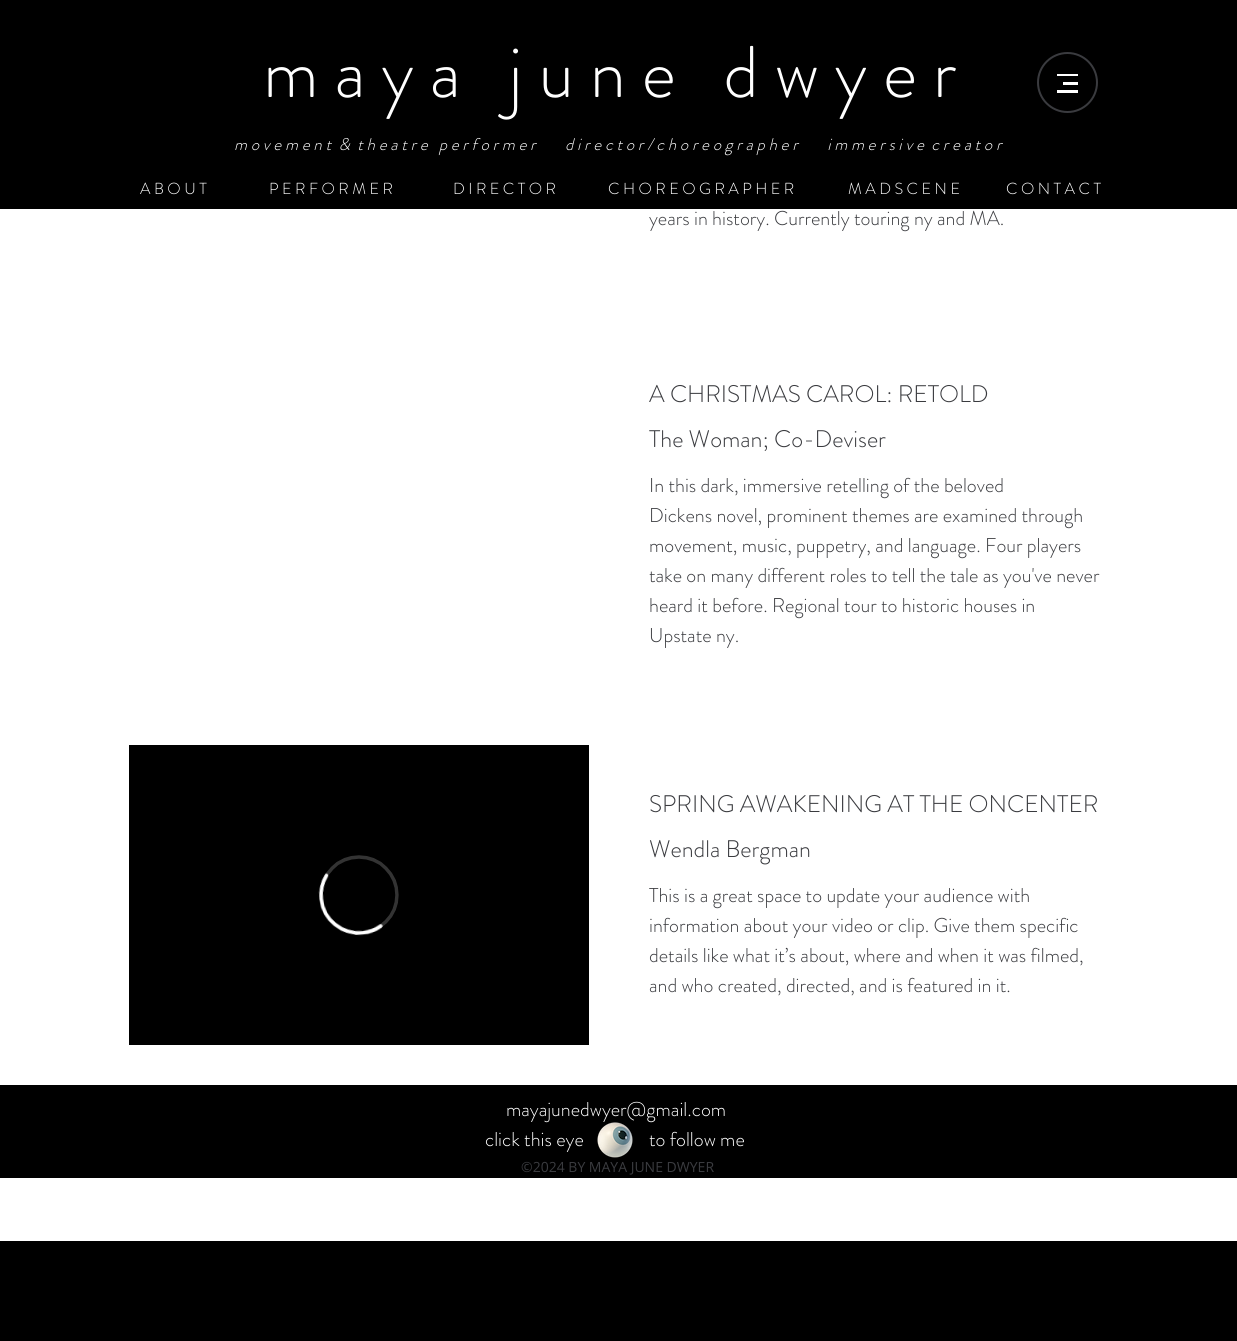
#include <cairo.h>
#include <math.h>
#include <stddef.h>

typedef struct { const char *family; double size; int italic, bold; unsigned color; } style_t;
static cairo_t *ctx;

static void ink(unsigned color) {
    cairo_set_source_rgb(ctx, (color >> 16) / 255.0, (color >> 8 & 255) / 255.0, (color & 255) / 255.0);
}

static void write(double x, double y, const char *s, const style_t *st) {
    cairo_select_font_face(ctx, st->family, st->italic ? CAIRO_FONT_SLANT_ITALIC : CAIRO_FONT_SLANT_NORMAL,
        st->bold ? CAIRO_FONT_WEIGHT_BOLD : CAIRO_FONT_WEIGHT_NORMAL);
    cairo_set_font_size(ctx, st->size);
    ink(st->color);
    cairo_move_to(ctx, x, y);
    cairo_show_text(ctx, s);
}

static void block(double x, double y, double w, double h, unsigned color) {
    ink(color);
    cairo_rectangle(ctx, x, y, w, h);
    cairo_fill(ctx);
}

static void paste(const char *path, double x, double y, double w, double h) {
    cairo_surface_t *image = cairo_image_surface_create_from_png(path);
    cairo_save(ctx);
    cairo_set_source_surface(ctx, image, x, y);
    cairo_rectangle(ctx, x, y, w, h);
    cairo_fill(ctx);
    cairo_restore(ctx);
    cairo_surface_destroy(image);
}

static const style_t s1 = {"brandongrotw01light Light", 73, 0, 0, 0xffffff};
static const style_t s2 = {"brandongrotw01light Light", 17, 1, 0, 0xffffff};
static const style_t s3 = {"brandongrotw01light Light", 16, 0, 0, 0xffffff};
static const style_t s4 = {"brandongrotw01light Light", 20, 0, 0, 0x3a3b3f};
static const style_t s5 = {"brandongrotw01light Light", 24, 0, 0, 0x3a3b3f};
static const style_t s6 = {"brandongrotw01light Light", 20, 0, 0, 0xffffff};
static const style_t s7 = {"Open Sans", 14, 0, 0, 0x3a3b3f};

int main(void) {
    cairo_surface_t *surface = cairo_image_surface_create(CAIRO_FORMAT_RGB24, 1237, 1341);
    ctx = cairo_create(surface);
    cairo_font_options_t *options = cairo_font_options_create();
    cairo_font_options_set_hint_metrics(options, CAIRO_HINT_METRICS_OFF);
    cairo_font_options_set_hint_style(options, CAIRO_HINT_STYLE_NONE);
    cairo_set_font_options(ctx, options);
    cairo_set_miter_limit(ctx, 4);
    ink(0xffffff);
    cairo_paint(ctx);
    block(0, 0, 1237, 209, 0x000000);
    write(263, 97, "m a y a   j u n e   d w y e r", &s1);
    cairo_new_path(ctx);
    cairo_arc(ctx, 1067.5, 82.5, 29.5, 0, 2 * M_PI);
    ink(0x3a3b3f);
    cairo_stroke(ctx);
    block(1057, 74, 21, 2, 0xffffff);
    block(1063, 82, 15, 3, 0xffffff);
    block(1057, 90, 21, 3, 0xffffff);
    write(234, 150, "m o v e m e n t  &  t h e a t r e   p e r f o r m e r        d i r e c t o r / c h o r e o g r a p h e r        i m m e r s i v e  c r e a t o r", &s2);
    write(140, 194, "A B O U T", &s3);
    write(269, 194, "P E R F O R M E R", &s3);
    write(453, 194, "D I R E C T O R", &s3);
    write(608, 194, "C H O R E O G R A P H E R", &s3);
    write(848, 194, "M A D S C E N E", &s3);
    write(1006, 194, "C O N T A C T", &s3);
    write(649, 225, "years in history. Currently touring ny and MA.", &s4);
    write(649, 402, "A CHRISTMAS CAROL: RETOLD", &s5);
    write(649, 447, "The Woman; Co-Deviser", &s5);
    write(649, 492, "In this dark, immersive retelling of the beloved", &s4);
    write(649, 522, "Dickens novel, prominent themes are examined through", &s4);
    write(649, 552, "movement, music, puppetry, and language. Four players", &s4);
    write(649, 582, "take on many different roles to tell the tale as you've never", &s4);
    write(649, 612, "heard it before. Regional tour to historic houses in", &s4);
    write(649, 642, "Upstate ny.", &s4);
    paste("pic1.png", 129, 745, 460, 300);
    write(649, 812, "SPRING AWAKENING AT THE ONCENTER", &s5);
    write(649, 857, "Wendla Bergman", &s5);
    write(649, 902, "This is a great space to update your audience with", &s4);
    write(649, 932, "information about your video or clip. Give them specific", &s4);
    write(649, 962, "details like what it’s about, where and when it was filmed,", &s4);
    write(649, 992, "and who created, directed, and is featured in it.", &s4);
    block(0, 1085, 1237, 93, 0x000000);
    write(506, 1116, "mayajunedwyer@gmail.com", &s6);
    paste("pic2.png", 597, 1122, 36, 36);
    write(485, 1146, "click this eye", &s6);
    write(649, 1146, "to follow me", &s6);
    write(521, 1172, "©2024 BY MAYA JUNE DWYER", &s7);
    block(0, 1241, 1237, 100, 0x000000);
    cairo_surface_write_to_png(surface, "screenshot.png");
    cairo_font_options_destroy(options);
    cairo_destroy(ctx);
    cairo_surface_destroy(surface);
    return 0;
}
